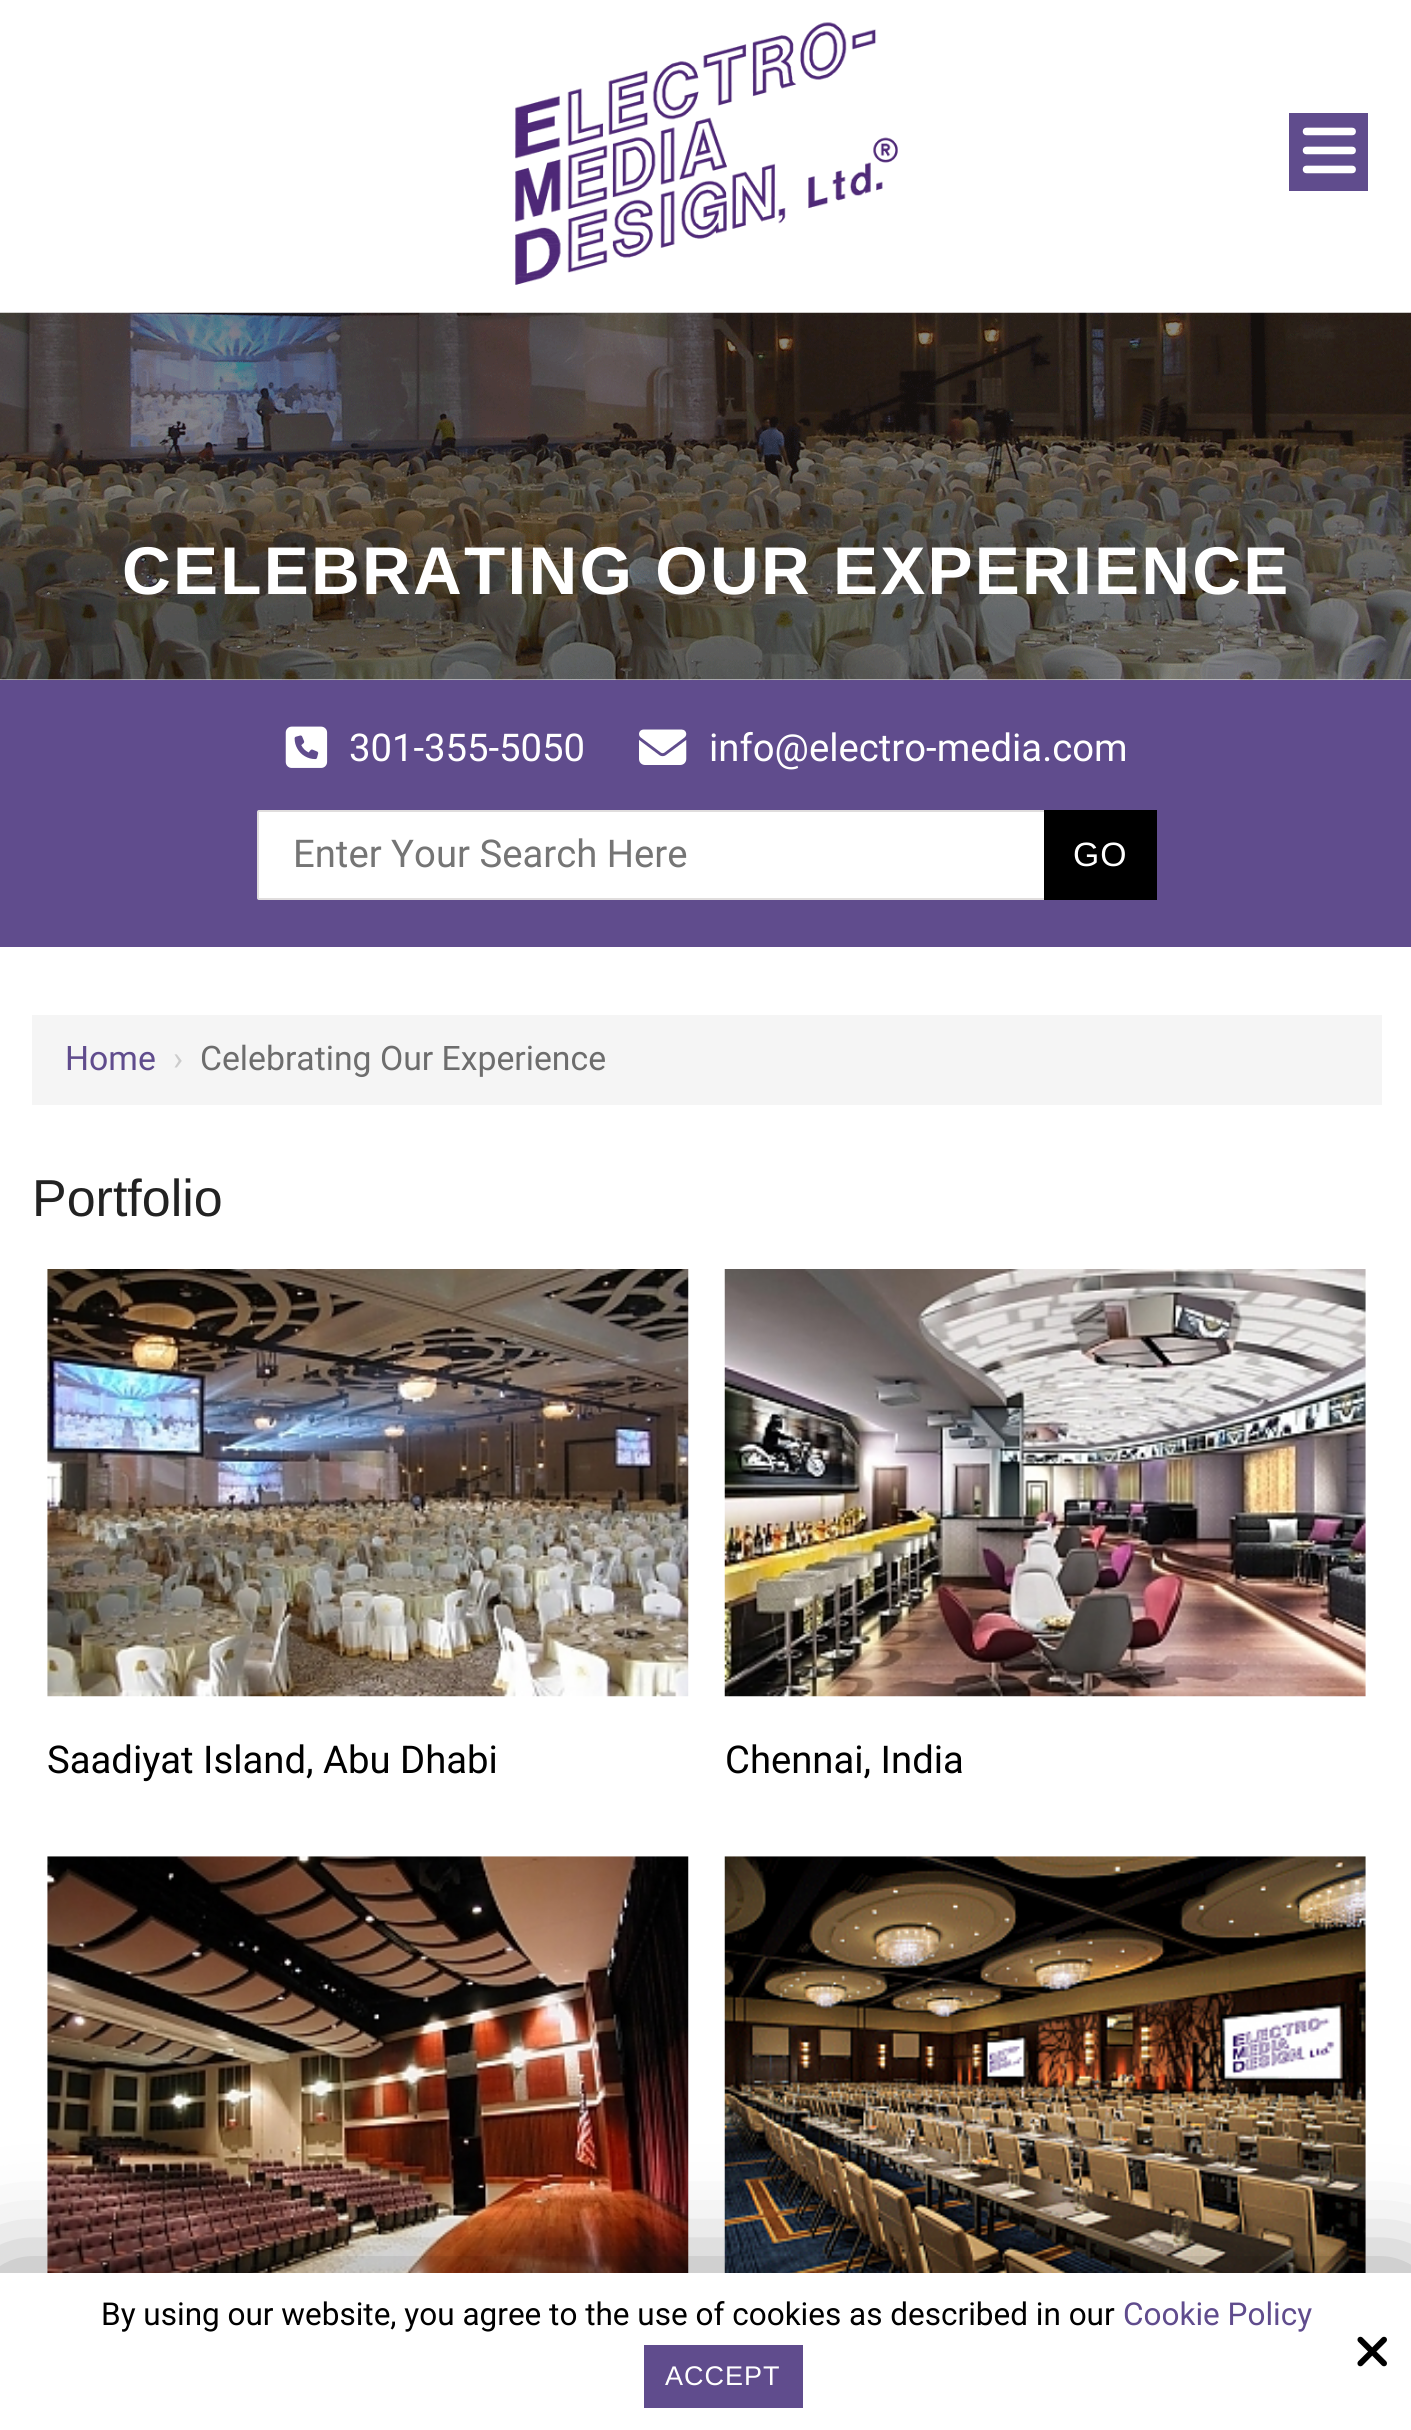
#include <cairo.h>
#include <math.h>
#include <stddef.h>

typedef struct { const char *family; double size; int italic, bold; unsigned color; } style_t;
static cairo_t *ctx;

static void ink(unsigned color) {
    cairo_set_source_rgb(ctx, (color >> 16) / 255.0, (color >> 8 & 255) / 255.0, (color & 255) / 255.0);
}

static void write(double x, double y, const char *s, const style_t *st) {
    cairo_select_font_face(ctx, st->family, st->italic ? CAIRO_FONT_SLANT_ITALIC : CAIRO_FONT_SLANT_NORMAL,
        st->bold ? CAIRO_FONT_WEIGHT_BOLD : CAIRO_FONT_WEIGHT_NORMAL);
    cairo_set_font_size(ctx, st->size);
    ink(st->color);
    cairo_move_to(ctx, x, y);
    cairo_show_text(ctx, s);
}

static void write_spaced(double x, double y, const char *s, double letter, double word) {
    cairo_move_to(ctx, x, y);
    while (*s) {
        char ch[5] = {0};
        int n = 0;
        do ch[n++] = *s++; while ((*s & 0xC0) == 0x80);
        cairo_show_text(ctx, ch);
        cairo_rel_move_to(ctx, letter + word * (*ch == ' '), 0);
    }
}

static void block(double x, double y, double w, double h, unsigned color) {
    ink(color);
    cairo_rectangle(ctx, x, y, w, h);
    cairo_fill(ctx);
}

static void round_path(double x, double y, double w, double h, double r) {
    cairo_new_sub_path(ctx);
    cairo_arc(ctx, x + w - r, y + h - r, r, 0, M_PI / 2);
    cairo_arc(ctx, x + r, y + h - r, r, M_PI / 2, M_PI);
    cairo_arc(ctx, x + r, y + r, r, M_PI, 1.5 * M_PI);
    cairo_arc(ctx, x + w - r, y + r, r, 1.5 * M_PI, 2 * M_PI);
    cairo_close_path(ctx);
}

static void blur_box(double x, double y, double w, double h, double r, double blur, double alpha) {
    cairo_push_group_with_content(ctx, CAIRO_CONTENT_ALPHA);
    cairo_set_operator(ctx, CAIRO_OPERATOR_SOURCE);
    for (int i = 15; i >= -15 && fmin(w, h) + blur * i / 3 > 0; i -= 2) {
        double e = blur * i / 6;
        cairo_set_source_rgba(ctx, 0, 0, 0, alpha * erfc((i - 1) / 8.5) / 2);
        round_path(x - e, y - e, w + 2 * e, h + 2 * e, fmax(0, fmin(r + e + blur * .6, fmin(w, h) / 2 + e)));
        cairo_fill(ctx);
    }
    cairo_pattern_t *soft = cairo_pop_group(ctx);
    cairo_mask(ctx, soft);
    cairo_pattern_destroy(soft);
}

static void paste(const char *path, double x, double y, double w, double h) {
    cairo_surface_t *image = cairo_image_surface_create_from_png(path);
    cairo_save(ctx);
    cairo_set_source_surface(ctx, image, x, y);
    cairo_rectangle(ctx, x, y, w, h);
    cairo_fill(ctx);
    cairo_restore(ctx);
    cairo_surface_destroy(image);
}

static const style_t s1 = {"Roboto", 38.25, 0, 0, 0xffffff};
static const style_t s2 = {"Roboto", 38.25, 0, 0, 0x757575};
static const style_t s3 = {"Roboto", 33.75, 0, 0, 0x604c8d};
static const style_t s4 = {"Roboto", 33.75, 0, 0, 0xcccccc};
static const style_t s5 = {"Roboto", 33.75, 0, 0, 0x6d6d6d};
static const style_t s6 = {"Liberation Sans", 52, 0, 0, 0x222222};
static const style_t s7 = {"Roboto", 38.25, 0, 0, 0x000000};
static const style_t s8 = {"Roboto", 31.5, 0, 0, 0x000000};
static const style_t s9 = {"Roboto", 31.5, 0, 0, 0x604c8d};

int main(void) {
    cairo_surface_t *surface = cairo_image_surface_create(CAIRO_FORMAT_RGB24, 1411, 2430);
    ctx = cairo_create(surface);
    cairo_font_options_t *options = cairo_font_options_create();
    cairo_font_options_set_hint_metrics(options, CAIRO_HINT_METRICS_OFF);
    cairo_font_options_set_hint_style(options, CAIRO_HINT_STYLE_NONE);
    cairo_set_font_options(ctx, options);
    cairo_set_miter_limit(ctx, 4);
    ink(0xffffff);
    cairo_paint(ctx);
    paste("pic1.png", 515, 22, 383, 263);
    block(1289, 113, 79, 78, 0x604c8d);
    paste("pic2.png", 1302, 127, 54, 47);
    paste("pic3.png", 0, 312, 1411, 368);
    cairo_select_font_face(ctx, "Liberation Sans", CAIRO_FONT_SLANT_NORMAL, CAIRO_FONT_WEIGHT_BOLD);
    cairo_set_font_size(ctx, 67.5);
    ink(0xffffff);
    write_spaced(122, 594, "CELEBRATING OUR EXPERIENCE", 2.25, 0);
    block(0, 680, 1411, 267, 0x604c8d);
    paste("pic4.png", 285, 726, 43, 42);
    write(349, 761, "301-355-5050", &s1);
    paste("pic5.png", 639, 729, 48, 36);
    write(709, 761, "info@electro-media.com", &s1);
    round_path(258, 811, 898, 88, 1);
    cairo_fill_preserve(ctx);
    ink(0xe0dddd);
    cairo_stroke(ctx);
    write(293, 867, "Enter Your Search Here", &s2);
    block(1044, 810, 113, 90, 0x000000);
    cairo_select_font_face(ctx, "Liberation Sans", CAIRO_FONT_SLANT_NORMAL, CAIRO_FONT_WEIGHT_NORMAL);
    cairo_set_font_size(ctx, 33.75);
    ink(0xffffff);
    write_spaced(1073, 866, "GO", 1, 0);
    block(32, 1015, 1350, 90, 0xf5f5f5);
    write(65, 1070, "Home", &s3);
    write(173, 1070, "›", &s4);
    write(200, 1070, "Celebrating Our Experience", &s5);
    write(32, 1216, "Portfolio", &s6);
    paste("pic6.png", 47, 1269, 642, 428);
    write(47, 1773, "Saadiyat Island, Abu Dhabi", &s7);
    paste("pic7.png", 724, 1269, 642, 428);
    write(725, 1773, "Chennai, India", &s7);
    paste("pic8.png", 47, 1856, 642, 417);
    paste("pic9.png", 724, 1856, 642, 417);
    ink(0x000000);
    blur_box(0, 2284, 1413, 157, 0, 56, 0.5);
    block(0, 2273, 1411, 157, 0xffffff);
    write(101, 2325, "By using our website, you agree to the use of cookies as described in our", &s8);
    write(1123, 2325, "Cookie Policy", &s9);
    block(644, 2345, 159, 63, 0x604c8d);
    cairo_select_font_face(ctx, "Liberation Sans", CAIRO_FONT_SLANT_NORMAL, CAIRO_FONT_WEIGHT_NORMAL);
    cairo_set_font_size(ctx, 27);
    ink(0xffffff);
    write_spaced(665, 2385, "ACCEPT", 1, 0);
    paste("pic10.png", 1357, 2336, 30, 31);
    cairo_surface_write_to_png(surface, "screenshot.png");
    cairo_font_options_destroy(options);
    cairo_destroy(ctx);
    cairo_surface_destroy(surface);
    return 0;
}
